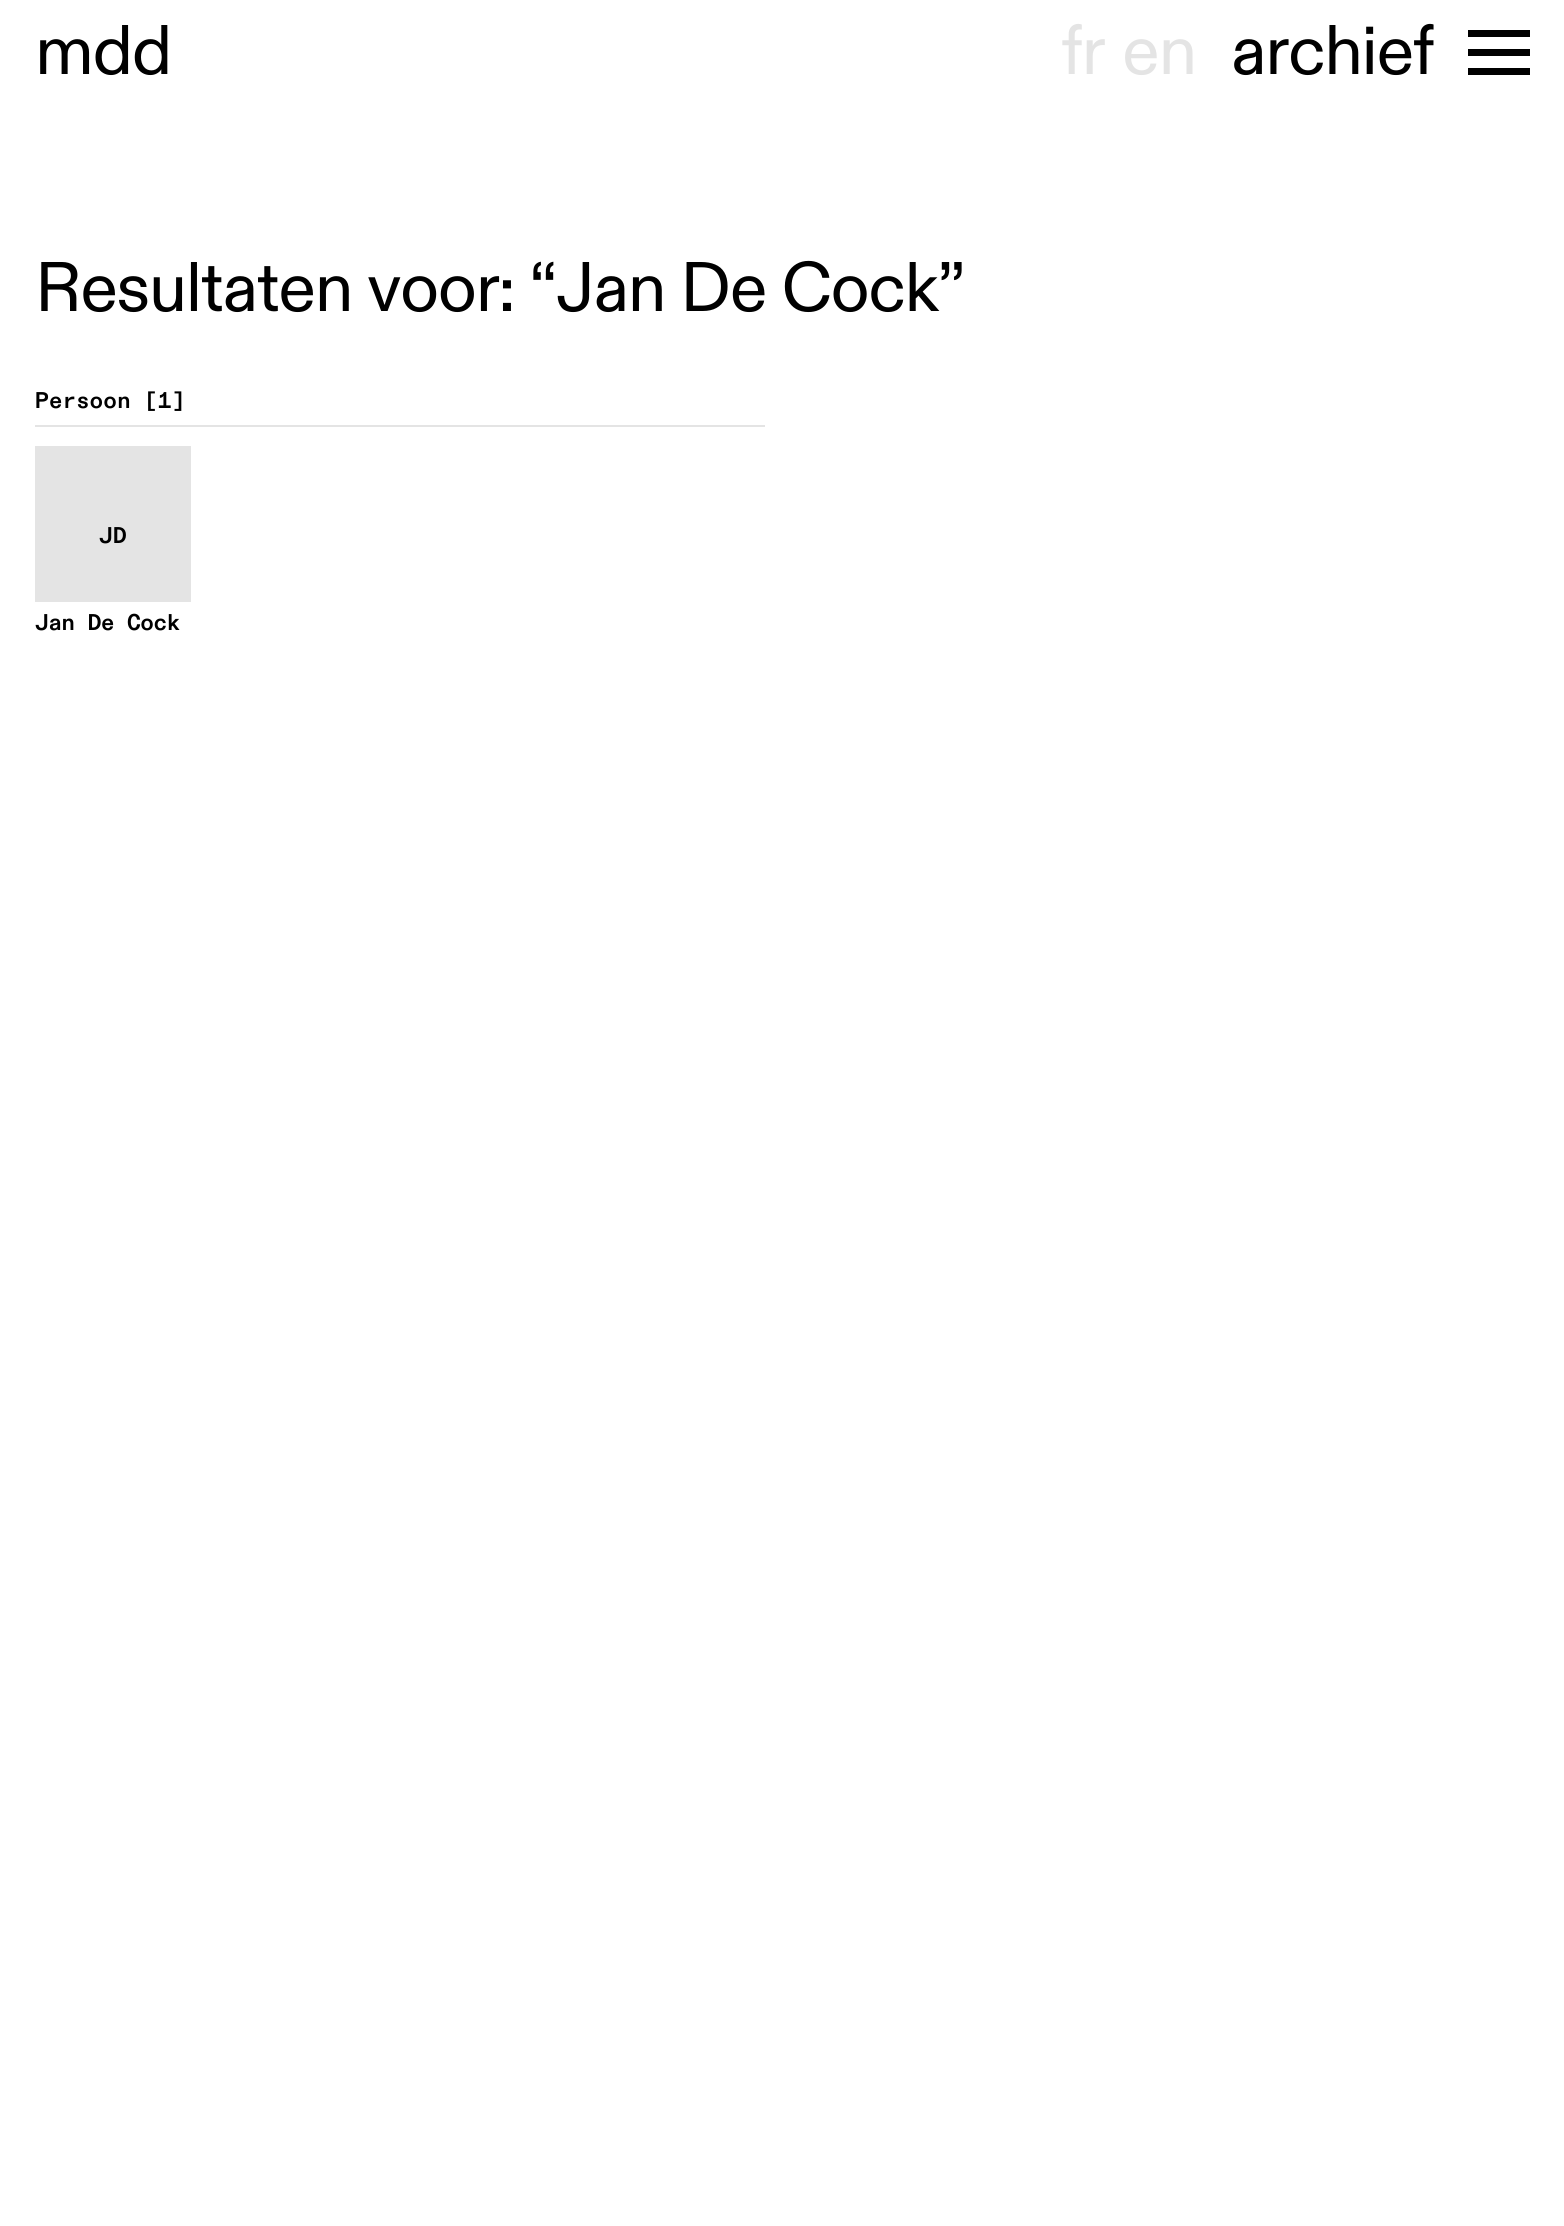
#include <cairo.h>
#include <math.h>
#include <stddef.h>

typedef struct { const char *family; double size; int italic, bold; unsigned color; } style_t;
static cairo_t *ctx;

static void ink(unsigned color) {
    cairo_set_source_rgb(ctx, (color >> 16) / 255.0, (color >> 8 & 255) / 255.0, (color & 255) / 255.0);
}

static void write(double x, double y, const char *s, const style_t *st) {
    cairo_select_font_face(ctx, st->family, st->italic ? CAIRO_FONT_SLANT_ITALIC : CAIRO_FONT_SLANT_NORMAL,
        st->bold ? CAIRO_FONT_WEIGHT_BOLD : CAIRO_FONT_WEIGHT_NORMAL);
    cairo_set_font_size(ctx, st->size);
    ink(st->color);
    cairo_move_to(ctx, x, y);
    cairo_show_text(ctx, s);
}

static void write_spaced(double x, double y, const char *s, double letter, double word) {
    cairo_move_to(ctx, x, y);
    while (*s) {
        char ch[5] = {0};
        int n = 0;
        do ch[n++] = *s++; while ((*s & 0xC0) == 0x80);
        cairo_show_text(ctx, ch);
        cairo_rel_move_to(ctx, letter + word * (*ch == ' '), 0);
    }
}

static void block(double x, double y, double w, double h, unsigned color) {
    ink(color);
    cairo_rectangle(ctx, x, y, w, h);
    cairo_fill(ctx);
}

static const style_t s1 = {"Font", 22.75, 0, 1, 0x000000};

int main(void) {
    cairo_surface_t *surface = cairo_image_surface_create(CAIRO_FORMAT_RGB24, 1564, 2226);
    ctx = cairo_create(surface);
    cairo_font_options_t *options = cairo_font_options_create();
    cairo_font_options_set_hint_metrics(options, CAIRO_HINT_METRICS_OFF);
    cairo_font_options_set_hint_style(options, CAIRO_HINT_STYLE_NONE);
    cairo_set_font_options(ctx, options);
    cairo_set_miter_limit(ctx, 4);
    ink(0xffffff);
    cairo_paint(ctx);
    cairo_select_font_face(ctx, "Font", CAIRO_FONT_SLANT_NORMAL, CAIRO_FONT_WEIGHT_NORMAL);
    cairo_set_font_size(ctx, 70);
    ink(0x000000);
    write_spaced(35, 74, "mdd", -1.4, 0);
    ink(0xe4e4e4);
    write_spaced(1061, 74, "fr", -1.4, 0);
    write_spaced(1122, 74, "en", -1.4, 0);
    ink(0x000000);
    write_spaced(1231, 74, "archief", -1.4, 0);
    block(1468, 30, 62, 7, 0x000000);
    block(1468, 49, 62, 7, 0x000000);
    block(1468, 68, 62, 7, 0x000000);
    write_spaced(35, 311, "Resultaten voor: “Jan De Cock”", -1.4, 0);
    block(35, 425, 730, 2, 0xe4e4e4);
    write(35, 408, "Persoon [1]", &s1);
    block(35, 446, 156, 156, 0xe4e4e4);
    write(99, 543, "JD", &s1);
    write_spaced(35, 630, "Jan De Cock", -0.5, 0);
    cairo_surface_write_to_png(surface, "screenshot.png");
    cairo_font_options_destroy(options);
    cairo_destroy(ctx);
    cairo_surface_destroy(surface);
    return 0;
}
